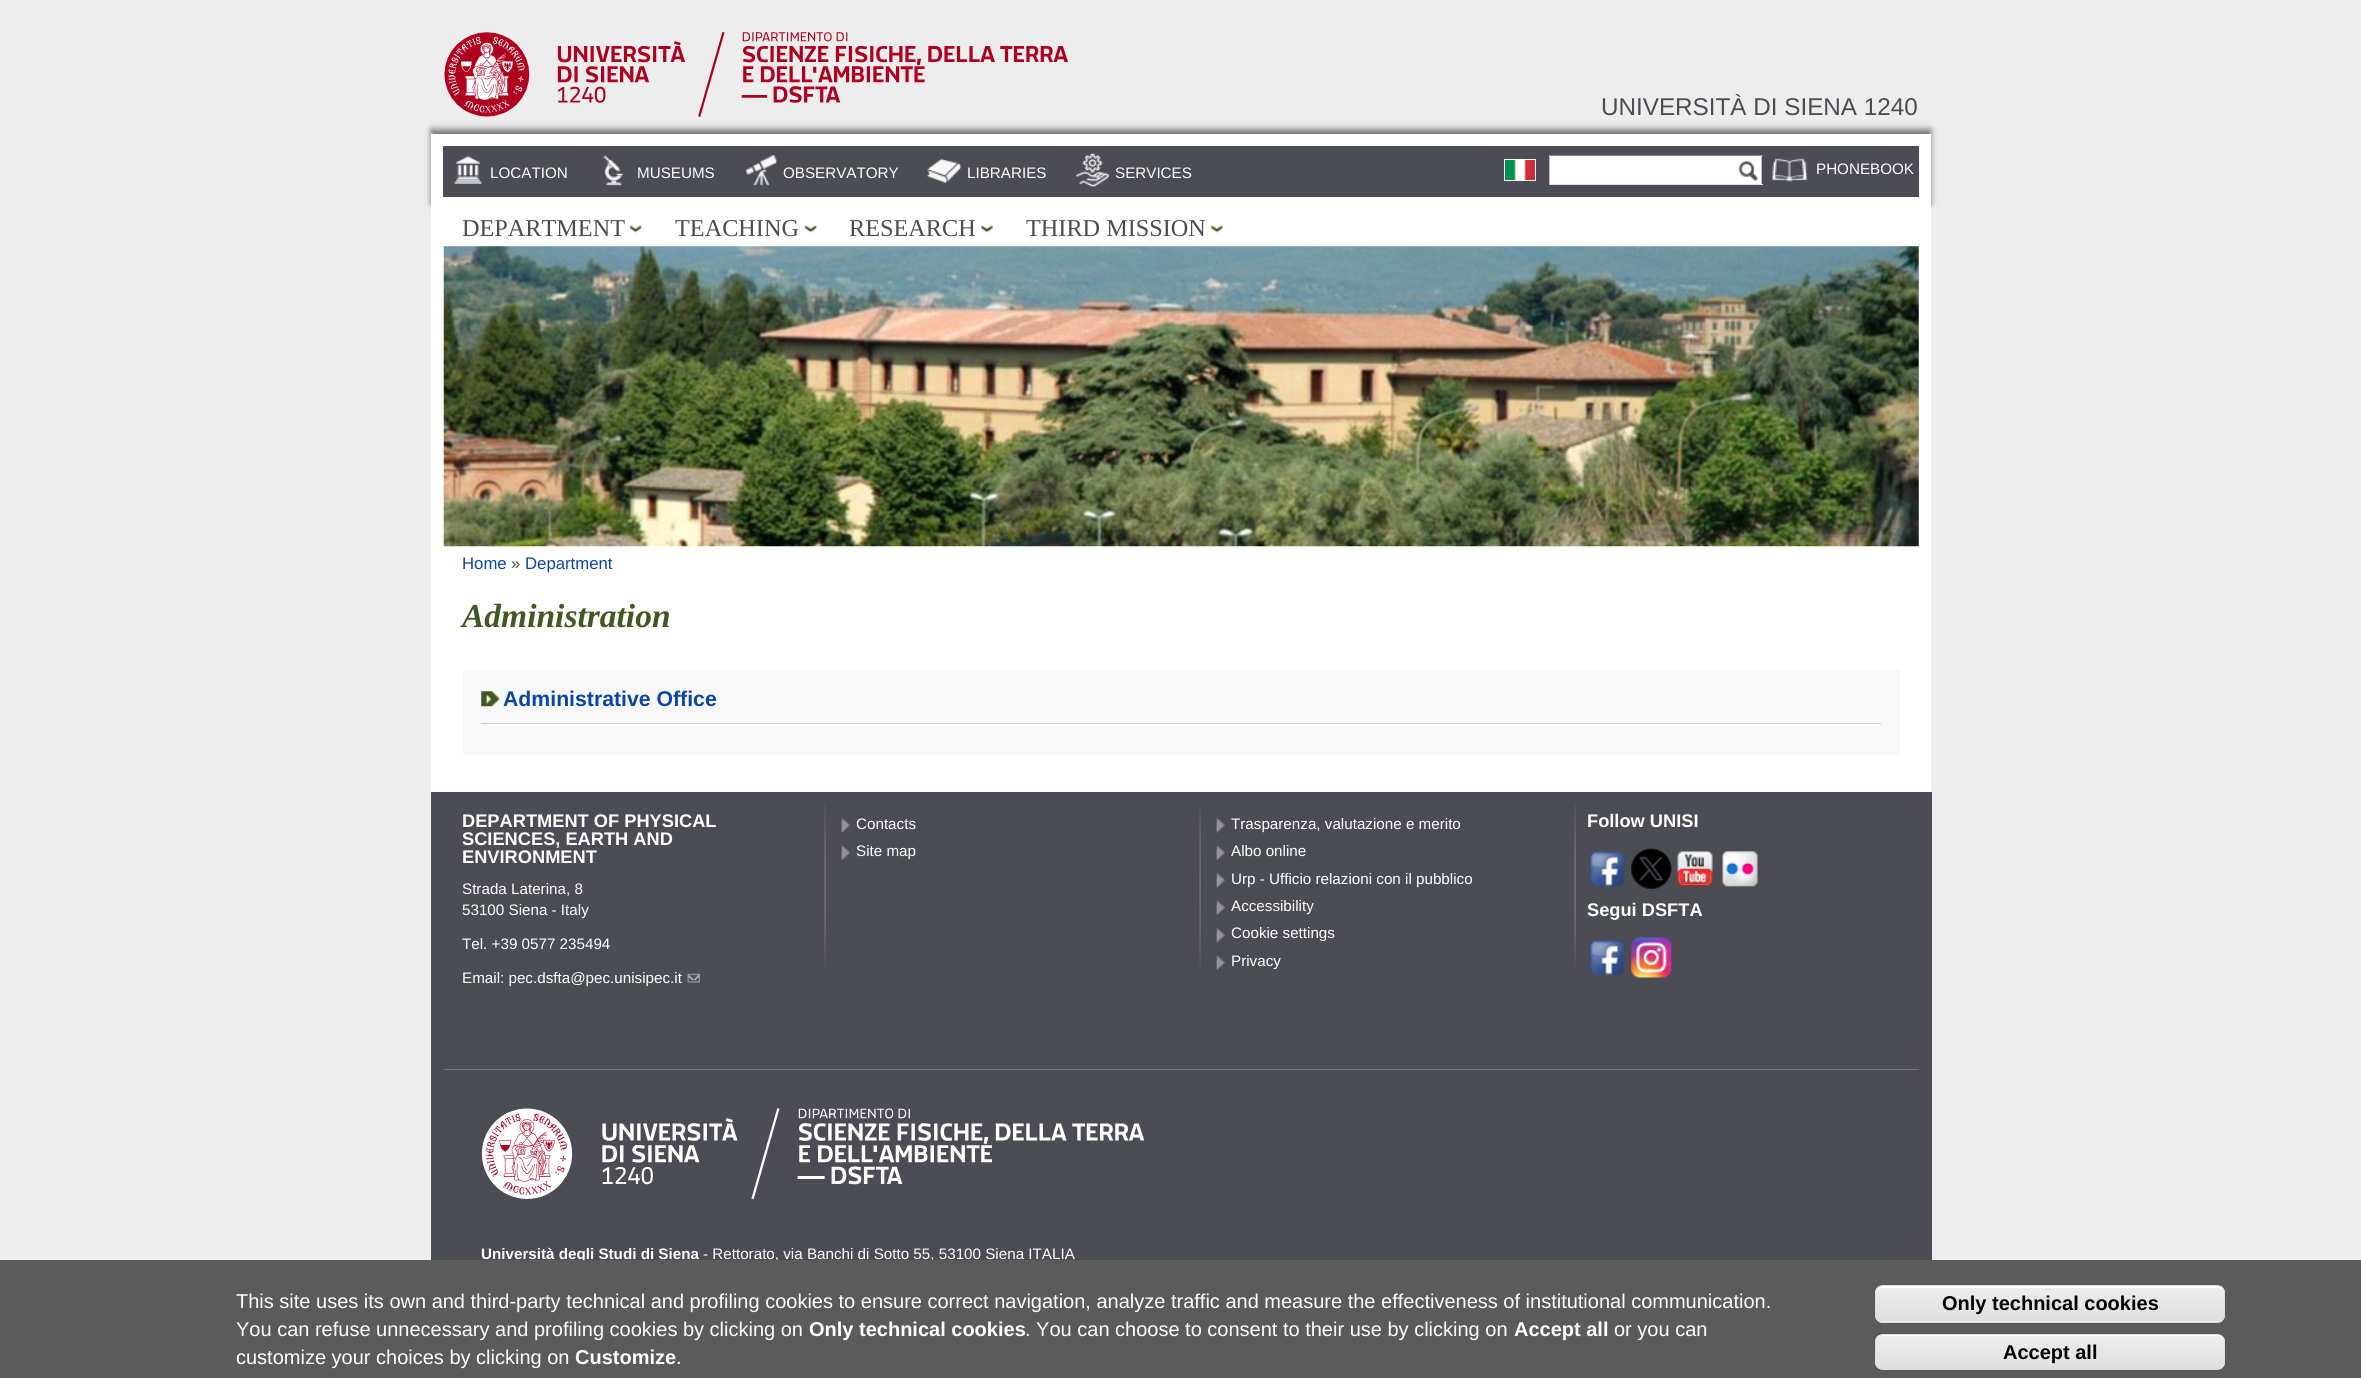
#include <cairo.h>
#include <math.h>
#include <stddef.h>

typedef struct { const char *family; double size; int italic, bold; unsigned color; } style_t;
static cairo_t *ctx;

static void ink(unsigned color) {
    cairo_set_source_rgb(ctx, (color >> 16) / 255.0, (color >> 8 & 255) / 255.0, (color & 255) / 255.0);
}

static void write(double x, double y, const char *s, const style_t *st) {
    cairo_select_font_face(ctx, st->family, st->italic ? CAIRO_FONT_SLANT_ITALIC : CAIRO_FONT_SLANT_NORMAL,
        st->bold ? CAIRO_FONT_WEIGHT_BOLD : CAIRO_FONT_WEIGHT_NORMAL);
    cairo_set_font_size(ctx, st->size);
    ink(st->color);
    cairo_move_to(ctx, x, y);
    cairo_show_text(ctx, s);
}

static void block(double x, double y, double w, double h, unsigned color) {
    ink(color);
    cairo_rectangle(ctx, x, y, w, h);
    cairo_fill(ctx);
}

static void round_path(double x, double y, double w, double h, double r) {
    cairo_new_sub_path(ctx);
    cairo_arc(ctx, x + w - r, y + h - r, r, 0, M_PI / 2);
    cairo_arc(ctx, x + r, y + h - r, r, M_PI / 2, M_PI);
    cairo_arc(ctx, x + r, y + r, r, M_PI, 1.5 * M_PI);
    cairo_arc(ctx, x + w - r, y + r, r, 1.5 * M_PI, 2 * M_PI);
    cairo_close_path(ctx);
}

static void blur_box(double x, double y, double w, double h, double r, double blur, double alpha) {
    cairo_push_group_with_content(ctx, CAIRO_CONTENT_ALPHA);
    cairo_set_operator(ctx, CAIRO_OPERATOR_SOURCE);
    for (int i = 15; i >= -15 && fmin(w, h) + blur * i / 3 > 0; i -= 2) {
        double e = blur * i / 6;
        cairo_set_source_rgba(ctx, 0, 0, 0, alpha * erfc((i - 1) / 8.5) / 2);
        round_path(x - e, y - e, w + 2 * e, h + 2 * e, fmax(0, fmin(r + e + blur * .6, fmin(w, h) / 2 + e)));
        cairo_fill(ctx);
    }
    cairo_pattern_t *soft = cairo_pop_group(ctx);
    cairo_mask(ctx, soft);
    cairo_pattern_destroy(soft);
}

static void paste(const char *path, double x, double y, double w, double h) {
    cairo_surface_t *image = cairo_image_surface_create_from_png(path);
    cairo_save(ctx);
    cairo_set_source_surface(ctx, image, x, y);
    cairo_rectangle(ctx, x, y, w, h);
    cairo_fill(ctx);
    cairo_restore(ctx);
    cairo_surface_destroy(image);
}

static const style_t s1 = {"Liberation Sans", 24.25, 0, 0, 0x4c4c53};
static const style_t s2 = {"Liberation Sans", 15.2, 0, 0, 0xffffff};
static const style_t s3 = {"Liberation Serif", 24.25, 0, 0, 0x4c4c53};
static const style_t s4 = {"Liberation Sans", 16.75, 0, 0, 0x0d45a6};
static const style_t s5 = {"Liberation Sans", 16.75, 0, 0, 0x4c4c53};
static const style_t s6 = {"Liberation Serif", 33.5, 1, 1, 0x415820};
static const style_t s7 = {"Liberation Sans", 21.25, 0, 1, 0x0d45a6};
static const style_t s8 = {"Liberation Sans", 18.25, 0, 1, 0xffffff};
static const style_t s9 = {"Liberation Sans", 15.2, 0, 1, 0xffffff};
static const style_t s10 = {"Liberation Sans", 20, 0, 0, 0xffffff};
static const style_t s11 = {"Liberation Sans", 20, 0, 1, 0xffffff};
static const style_t s12 = {"Liberation Sans", 20, 0, 1, 0x000000};

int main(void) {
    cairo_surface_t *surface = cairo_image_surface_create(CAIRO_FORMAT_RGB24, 2361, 1378);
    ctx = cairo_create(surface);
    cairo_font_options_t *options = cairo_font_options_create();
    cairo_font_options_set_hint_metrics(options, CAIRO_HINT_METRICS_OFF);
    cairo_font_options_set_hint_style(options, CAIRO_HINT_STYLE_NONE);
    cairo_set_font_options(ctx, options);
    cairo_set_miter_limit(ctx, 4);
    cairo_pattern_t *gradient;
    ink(0xeeeded);
    cairo_paint(ctx);
    paste("pic1.png", 444, 31, 624, 86);
    write(1601, 115, "UNIVERSITÀ DI SIENA 1240", &s1);
    ink(0x7c7c7c);
    blur_box(431, 129, 1500, 75, 0, 3, 1);
    block(431, 134, 1500, 658, 0xffffff);
    block(443, 146, 1476, 51, 0x4c4c54);
    paste("pic2.png", 453, 156, 29, 28);
    write(490, 178, "LOCATION", &s2);
    paste("pic3.png", 602, 154, 22, 32);
    write(637, 178, "MUSEUMS", &s2);
    paste("pic4.png", 746, 154, 31, 32);
    write(783, 178, "OBSERVATORY", &s2);
    paste("pic5.png", 927, 158, 35, 26);
    write(967, 178, "LIBRARIES", &s2);
    paste("pic6.png", 1076, 153, 33, 34);
    write(1115, 178, "SERVICES", &s2);
    cairo_rectangle(ctx, 1504.5, 159.5, 31, 21);
    cairo_set_line_width(ctx, 1);
    cairo_stroke(ctx);
    paste("pic7.png", 1505, 160, 30, 20);
    block(1550, 156, 211, 28, 0xffffff);
    block(1549, 155, 214, 1, 0x848484);
    block(1761, 155, 1, 30, 0xc1c1c1);
    block(1549, 184, 214, 1, 0xe1e1e1);
    block(1549, 155, 1, 30, 0xc1c1c1);
    paste("pic8.png", 1738, 161, 20, 20);
    paste("pic9.png", 1772, 158, 36, 24);
    write(1816, 174, "PHONEBOOK", &s2);
    paste("pic10.png", 629, 225, 13, 8);
    write(462, 236, "DEPARTMENT", &s3);
    paste("pic11.png", 804, 225, 13, 8);
    write(675, 236, "TEACHING", &s3);
    paste("pic12.png", 981, 225, 12, 8);
    write(849, 236, "RESEARCH", &s3);
    paste("pic13.png", 1211, 225, 12, 8);
    write(1026, 236, "THIRD MISSION", &s3);
    paste("pic14.png", 443, 246, 1476, 301);
    write(462, 569, "Home", &s4);
    write(511, 569, "»", &s5);
    write(525, 569, "Department", &s4);
    write(462, 627, "Administration", &s6);
    block(463, 670, 1437, 85, 0xf8f8f8);
    block(481, 723, 1400, 1, 0xcccccc);
    paste("pic15.png", 481, 691, 19, 16);
    write(503, 706, "Administrative Office", &s7);
    block(431, 792, 1501, 468, 0x4c4c54);
    write(462, 827, "DEPARTMENT OF PHYSICAL", &s8);
    write(462, 845, "SCIENCES, EARTH AND", &s8);
    write(462, 863, "ENVIRONMENT", &s8);
    write(462, 894, "Strada Laterina, 8", &s2);
    write(462, 915, "53100 Siena - Italy", &s2);
    write(462, 949, "Tel. +39 0577 235494", &s2);
    write(462, 983, "Email: pec.dsfta@pec.unisipec.it", &s2);
    paste("pic16.png", 687, 973, 13, 10);
    paste("pic17.png", 824, 804, 2, 165);
    paste("pic18.png", 841, 817, 9, 16);
    write(856, 829, "Contacts", &s2);
    paste("pic19.png", 841, 845, 9, 15);
    write(856, 856, "Site map", &s2);
    paste("pic17.png", 1199, 804, 2, 165);
    paste("pic18.png", 1216, 817, 9, 16);
    write(1231, 829, "Trasparenza, valutazione e merito", &s2);
    paste("pic19.png", 1216, 845, 9, 15);
    write(1231, 856, "Albo online", &s2);
    paste("pic18.png", 1216, 872, 9, 16);
    write(1231, 884, "Urp - Ufficio relazioni con il pubblico", &s2);
    paste("pic19.png", 1216, 900, 9, 15);
    write(1231, 911, "Accessibility", &s2);
    paste("pic18.png", 1216, 927, 9, 16);
    write(1231, 938, "Cookie settings", &s2);
    paste("pic19.png", 1216, 955, 9, 15);
    write(1231, 966, "Privacy", &s2);
    paste("pic17.png", 1574, 804, 2, 165);
    write(1587, 827, "Follow UNISI", &s8);
    paste("pic20.png", 1590, 851, 35, 36);
    paste("pic21.png", 1631, 848, 41, 41);
    paste("pic22.png", 1677, 851, 36, 36);
    paste("pic23.png", 1721, 851, 37, 36);
    write(1587, 916, "Segui DSFTA", &s8);
    paste("pic24.png", 1590, 940, 35, 36);
    paste("pic25.png", 1631, 937, 41, 41);
    block(444, 1069, 1475, 1, 0x777678);
    paste("pic26.png", 481, 1108, 664, 92);
    write(481, 1259, "Università degli Studi di Siena", &s9);
    write(703, 1259, "- Rettorato, via Banchi di Sotto 55, 53100 Siena ITALIA", &s2);
    block(0, 1260, 2361, 118, 0x5b5b5b);
    write(236, 1308, "This site uses its own and third-party technical and profiling cookies to ensure correct navigation, analyze traffic and measure the effectiveness of institutional communication.", &s10);
    write(236, 1336, "You can refuse unnecessary and profiling cookies by clicking on", &s10);
    write(809, 1336, "Only technical cookies", &s11);
    write(1025, 1336, ". You can choose to consent to their use by clicking on", &s10);
    write(1514, 1336, "Accept all", &s11);
    write(1614, 1336, "or you can", &s10);
    write(236, 1364, "customize your choices by clicking on", &s10);
    write(575, 1364, "Customize", &s11);
    write(676, 1364, ".", &s10);
    cairo_save(ctx);
    round_path(1875, 1285, 350, 38, 8);
    cairo_clip(ctx);
    gradient = cairo_pattern_create_linear(2050, 1286, 2050, 1321);
    cairo_pattern_add_color_stop_rgba(gradient, 0.05, 0.929, 0.929, 0.929, 1);
    cairo_pattern_add_color_stop_rgba(gradient, 1, 0.875, 0.875, 0.875, 1);
    cairo_set_source(ctx, gradient);
    cairo_pattern_destroy(gradient);
    cairo_rectangle(ctx, 1875, 1286, 350, 35);
    cairo_fill(ctx);
    gradient = cairo_pattern_create_linear(2050, 1321, 2050, 1356);
    cairo_pattern_add_color_stop_rgba(gradient, 0.05, 0.929, 0.929, 0.929, 1);
    cairo_pattern_add_color_stop_rgba(gradient, 1, 0.875, 0.875, 0.875, 1);
    cairo_set_source(ctx, gradient);
    cairo_pattern_destroy(gradient);
    cairo_rectangle(ctx, 1875, 1321, 350, 2);
    cairo_fill(ctx);
    cairo_restore(ctx);
    cairo_new_path(ctx);
    cairo_move_to(ctx, 1882, 1288);
    cairo_line_to(ctx, 2218, 1288);
    cairo_curve_to(ctx, 2221, 1288, 2224, 1290, 2224, 1294);
    cairo_line_to(ctx, 2224, 1292);
    cairo_curve_to(ctx, 2224, 1289, 2221, 1286, 2218, 1286);
    cairo_line_to(ctx, 1882, 1286);
    cairo_curve_to(ctx, 1879, 1286, 1876, 1289, 1876, 1292);
    cairo_line_to(ctx, 1876, 1294);
    cairo_curve_to(ctx, 1876, 1290, 1879, 1288, 1882, 1288);
    cairo_close_path(ctx);
    cairo_fill(ctx);
    round_path(1875.5, 1285.5, 349, 37, 7.5);
    ink(0xdcdcdc);
    cairo_stroke(ctx);
    write(1942, 1310, "Only technical cookies", &s12);
    cairo_save(ctx);
    round_path(1875, 1334, 350, 36, 8);
    cairo_clip(ctx);
    gradient = cairo_pattern_create_linear(2050, 1335, 2050, 1369);
    cairo_pattern_add_color_stop_rgba(gradient, 0.05, 0.929, 0.929, 0.929, 1);
    cairo_pattern_add_color_stop_rgba(gradient, 1, 0.875, 0.875, 0.875, 1);
    cairo_set_source(ctx, gradient);
    cairo_pattern_destroy(gradient);
    cairo_rectangle(ctx, 1875, 1335, 350, 34);
    cairo_fill(ctx);
    cairo_restore(ctx);
    ink(0xffffff);
    cairo_new_path(ctx);
    cairo_move_to(ctx, 1882, 1336);
    cairo_line_to(ctx, 2218, 1336);
    cairo_curve_to(ctx, 2221, 1336, 2224, 1339, 2224, 1342);
    cairo_curve_to(ctx, 2224, 1338, 2222, 1335, 2218, 1335);
    cairo_line_to(ctx, 1882, 1335);
    cairo_curve_to(ctx, 1878, 1335, 1876, 1338, 1876, 1342);
    cairo_curve_to(ctx, 1876, 1339, 1879, 1336, 1882, 1336);
    cairo_close_path(ctx);
    cairo_fill(ctx);
    round_path(1875.5, 1334.5, 349, 35, 7.5);
    ink(0xdcdcdc);
    cairo_stroke(ctx);
    write(2003, 1359, "Accept all", &s12);
    cairo_surface_write_to_png(surface, "screenshot.png");
    cairo_font_options_destroy(options);
    cairo_destroy(ctx);
    cairo_surface_destroy(surface);
    return 0;
}
